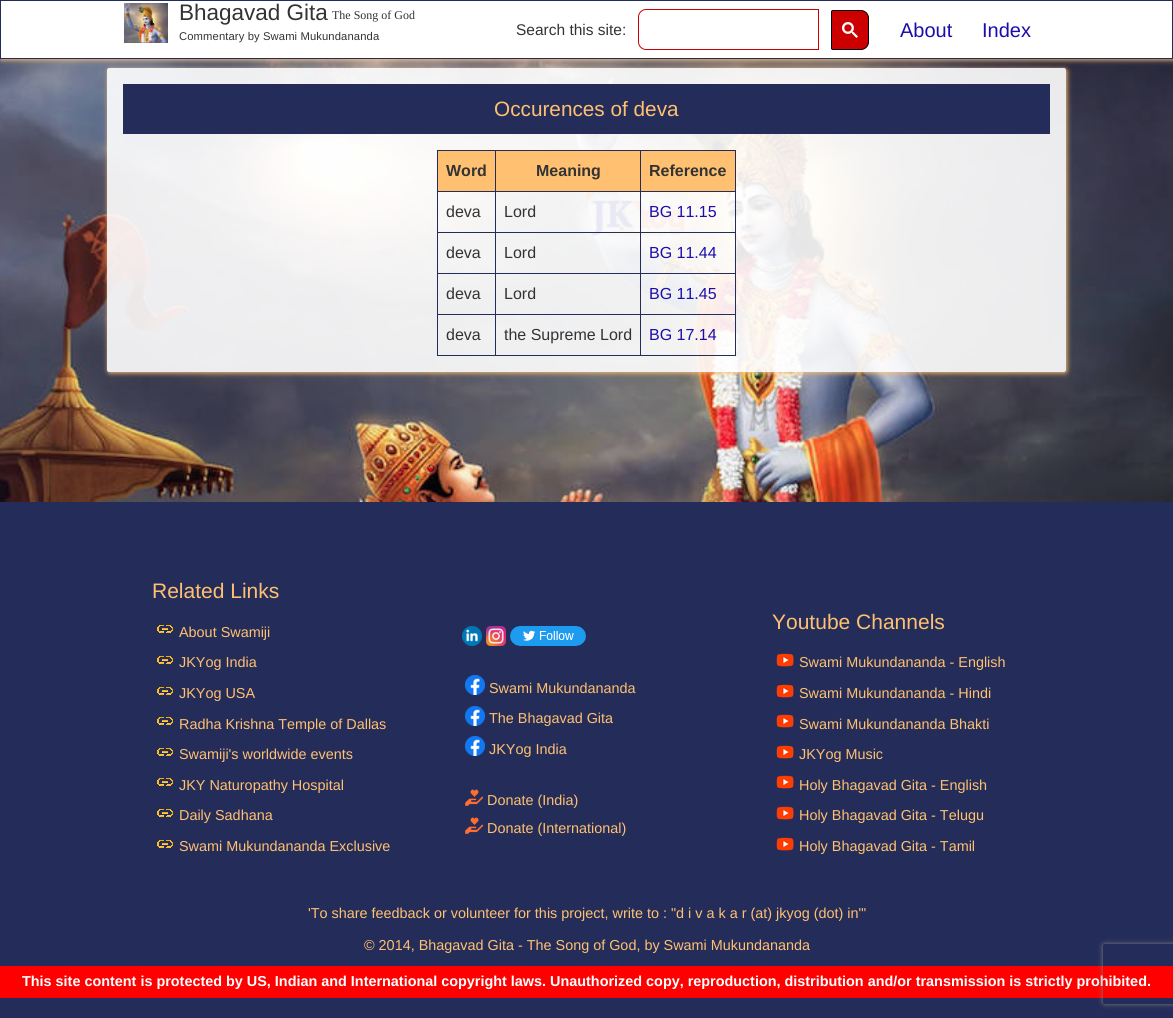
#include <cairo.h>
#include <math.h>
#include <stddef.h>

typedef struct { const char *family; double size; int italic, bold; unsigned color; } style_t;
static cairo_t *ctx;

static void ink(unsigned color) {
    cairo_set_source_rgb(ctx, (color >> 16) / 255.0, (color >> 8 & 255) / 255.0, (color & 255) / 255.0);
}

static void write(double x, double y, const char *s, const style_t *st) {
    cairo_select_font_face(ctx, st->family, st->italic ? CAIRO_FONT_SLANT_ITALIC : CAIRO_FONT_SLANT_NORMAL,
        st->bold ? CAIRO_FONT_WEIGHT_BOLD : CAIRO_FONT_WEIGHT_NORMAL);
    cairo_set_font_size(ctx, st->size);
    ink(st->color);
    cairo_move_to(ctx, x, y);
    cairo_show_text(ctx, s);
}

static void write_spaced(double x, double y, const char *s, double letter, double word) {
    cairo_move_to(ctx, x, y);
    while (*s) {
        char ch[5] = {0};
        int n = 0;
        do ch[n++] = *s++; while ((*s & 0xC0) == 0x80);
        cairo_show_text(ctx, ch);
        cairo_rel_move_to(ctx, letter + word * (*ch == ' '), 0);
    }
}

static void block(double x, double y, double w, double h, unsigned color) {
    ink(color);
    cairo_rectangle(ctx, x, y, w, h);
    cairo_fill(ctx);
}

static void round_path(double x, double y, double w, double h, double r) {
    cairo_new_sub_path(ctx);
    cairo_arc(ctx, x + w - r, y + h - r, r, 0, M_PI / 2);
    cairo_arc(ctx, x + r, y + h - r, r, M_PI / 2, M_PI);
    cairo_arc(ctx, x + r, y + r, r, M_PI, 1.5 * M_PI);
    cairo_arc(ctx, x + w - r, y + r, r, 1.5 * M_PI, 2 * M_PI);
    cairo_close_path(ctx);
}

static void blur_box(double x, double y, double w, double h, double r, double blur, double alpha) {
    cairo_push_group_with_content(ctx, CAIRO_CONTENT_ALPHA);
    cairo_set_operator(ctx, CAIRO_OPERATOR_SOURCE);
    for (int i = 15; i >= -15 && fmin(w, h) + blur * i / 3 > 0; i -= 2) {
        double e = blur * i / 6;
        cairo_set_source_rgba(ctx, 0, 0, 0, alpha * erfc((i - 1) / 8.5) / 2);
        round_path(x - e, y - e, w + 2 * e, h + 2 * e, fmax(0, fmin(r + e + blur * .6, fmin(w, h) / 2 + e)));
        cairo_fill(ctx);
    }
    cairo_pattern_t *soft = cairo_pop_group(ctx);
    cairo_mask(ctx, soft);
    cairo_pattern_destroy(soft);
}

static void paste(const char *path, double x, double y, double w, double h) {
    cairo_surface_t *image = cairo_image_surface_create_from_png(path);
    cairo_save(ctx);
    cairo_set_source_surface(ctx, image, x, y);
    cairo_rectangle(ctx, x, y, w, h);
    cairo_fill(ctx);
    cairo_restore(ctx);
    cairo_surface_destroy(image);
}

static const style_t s1 = {"Liberation Sans", 22.5, 0, 0, 0x333333};
static const style_t s2 = {"Liberation Serif", 12, 0, 0, 0x333333};
static const style_t s3 = {"Liberation Sans", 15.5, 0, 0, 0x333333};
static const style_t s4 = {"Liberation Sans", 20, 0, 0, 0x1a0dab};
static const style_t s5 = {"Liberation Sans", 20.75, 0, 0, 0xffc071};
static const style_t s6 = {"Liberation Sans", 16, 0, 1, 0x333333};
static const style_t s7 = {"Liberation Sans", 16, 0, 0, 0x333333};
static const style_t s8 = {"Liberation Sans", 16, 0, 0, 0x1a0dab};
static const style_t s9 = {"Liberation Sans", 21, 0, 0, 0xffc071};
static const style_t s10 = {"Liberation Sans", 14.4, 0, 0, 0xffc071};
static const style_t s11 = {"Liberation Sans", 14.4, 0, 1, 0xffffff};

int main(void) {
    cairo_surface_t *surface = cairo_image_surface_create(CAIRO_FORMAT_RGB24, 1173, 1018);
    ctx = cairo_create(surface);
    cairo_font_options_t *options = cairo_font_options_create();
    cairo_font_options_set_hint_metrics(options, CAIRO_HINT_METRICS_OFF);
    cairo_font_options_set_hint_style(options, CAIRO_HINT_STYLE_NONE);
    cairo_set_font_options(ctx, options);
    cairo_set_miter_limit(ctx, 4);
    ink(0xffffff);
    cairo_paint(ctx);
    paste("pic1.png", 0, 59, 1173, 443);
    ink(0xffc071);
    blur_box(1, 1, 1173, 59, 0, 2.5, 1);
    ink(0xffffff);
    cairo_rectangle(ctx, 0.5, 0.5, 1172, 58);
    cairo_fill_preserve(ctx);
    ink(0x242d59);
    cairo_set_line_width(ctx, 1);
    cairo_stroke(ctx);
    paste("pic2.png", 124, 3, 44, 40);
    write(179, 20, "Bhagavad Gita", &s1);
    write(332, 19, "The Song of God", &s2);
    cairo_select_font_face(ctx, "Liberation Sans", CAIRO_FONT_SLANT_NORMAL, CAIRO_FONT_WEIGHT_NORMAL);
    cairo_set_font_size(ctx, 11.25);
    write_spaced(179, 40, "Commentary by Swami Mukundananda", 0.1, 0);
    write(516, 35, "Search this site:", &s3);
    cairo_new_path(ctx);
    cairo_move_to(ctx, 646, 9.5);
    cairo_line_to(ctx, 818.5, 9.5);
    cairo_line_to(ctx, 818.5, 49.5);
    cairo_line_to(ctx, 646, 49.5);
    cairo_curve_to(ctx, 642, 49.5, 638.5, 46, 638.5, 42);
    cairo_line_to(ctx, 638.5, 17);
    cairo_curve_to(ctx, 638.5, 13, 642, 9.5, 646, 9.5);
    cairo_close_path(ctx);
    ink(0xcc0000);
    cairo_stroke(ctx);
    cairo_new_path(ctx);
    cairo_move_to(ctx, 833, 10.5);
    cairo_line_to(ctx, 861, 10.5);
    cairo_curve_to(ctx, 865, 10.5, 868.5, 14, 868.5, 18);
    cairo_line_to(ctx, 868.5, 42);
    cairo_curve_to(ctx, 868.5, 46, 865, 49.5, 861, 49.5);
    cairo_line_to(ctx, 833, 49.5);
    cairo_curve_to(ctx, 832, 49.5, 831.5, 49, 831.5, 48);
    cairo_line_to(ctx, 831.5, 12);
    cairo_curve_to(ctx, 831.5, 11, 832, 10.5, 833, 10.5);
    cairo_close_path(ctx);
    cairo_fill_preserve(ctx);
    ink(0x000000);
    cairo_stroke(ctx);
    paste("pic3.png", 842, 22, 16, 16);
    write(900, 37, "About", &s4);
    write(982, 37, "Index", &s4);
    cairo_save(ctx);
    cairo_set_fill_rule(ctx, CAIRO_FILL_RULE_EVEN_ODD);
    cairo_new_path(ctx);
    cairo_move_to(ctx, 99, 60);
    cairo_line_to(ctx, 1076, 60);
    cairo_line_to(ctx, 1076, 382);
    cairo_line_to(ctx, 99, 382);
    cairo_close_path(ctx);
    cairo_move_to(ctx, 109, 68);
    cairo_line_to(ctx, 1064, 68);
    cairo_curve_to(ctx, 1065, 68, 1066, 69, 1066, 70);
    cairo_line_to(ctx, 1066, 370);
    cairo_curve_to(ctx, 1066, 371, 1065, 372, 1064, 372);
    cairo_line_to(ctx, 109, 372);
    cairo_curve_to(ctx, 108, 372, 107, 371, 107, 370);
    cairo_line_to(ctx, 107, 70);
    cairo_curve_to(ctx, 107, 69, 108, 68, 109, 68);
    cairo_close_path(ctx);
    cairo_clip(ctx);
    ink(0xffc071);
    blur_box(108, 69, 959, 304, 2, 2.5, 1);
    cairo_restore(ctx);
    cairo_set_source_rgba(ctx, 1, 1, 1, 0.9);
    round_path(107, 68, 959, 304, 2);
    cairo_fill(ctx);
    block(123, 84, 927, 50, 0x242d59);
    write(494, 116, "Occurences of deva", &s5);
    block(438, 151, 57, 40, 0xffc071);
    block(640, 150, 96, 1, 0x242d59);
    block(640, 191, 96, 1, 0x242d59);
    block(640, 232, 96, 1, 0x242d59);
    block(640, 273, 96, 1, 0x242d59);
    block(640, 314, 96, 1, 0x242d59);
    block(735, 314, 1, 42, 0x242d59);
    block(640, 355, 96, 1, 0x242d59);
    block(640, 314, 1, 42, 0x242d59);
    block(495, 314, 146, 1, 0x242d59);
    block(640, 273, 1, 42, 0x242d59);
    block(495, 273, 146, 1, 0x242d59);
    block(640, 232, 1, 42, 0x242d59);
    block(495, 232, 146, 1, 0x242d59);
    block(640, 191, 1, 42, 0x242d59);
    block(495, 191, 146, 1, 0x242d59);
    block(640, 150, 1, 42, 0x242d59);
    block(495, 150, 146, 1, 0x242d59);
    block(495, 355, 146, 1, 0x242d59);
    block(495, 314, 1, 42, 0x242d59);
    block(437, 314, 59, 1, 0x242d59);
    block(495, 273, 1, 42, 0x242d59);
    block(437, 273, 59, 1, 0x242d59);
    block(495, 232, 1, 42, 0x242d59);
    block(437, 232, 59, 1, 0x242d59);
    block(495, 191, 1, 42, 0x242d59);
    block(437, 191, 59, 1, 0x242d59);
    block(495, 150, 1, 42, 0x242d59);
    block(437, 150, 59, 1, 0x242d59);
    block(437, 355, 59, 1, 0x242d59);
    block(437, 314, 1, 42, 0x242d59);
    block(437, 273, 1, 42, 0x242d59);
    block(437, 232, 1, 42, 0x242d59);
    block(437, 191, 1, 42, 0x242d59);
    block(437, 150, 1, 42, 0x242d59);
    write(446, 176, "Word", &s6);
    block(496, 151, 144, 40, 0xffc071);
    write(536, 176, "Meaning", &s6);
    block(641, 151, 94, 40, 0xffc071);
    block(735, 273, 1, 42, 0x242d59);
    block(735, 232, 1, 42, 0x242d59);
    block(735, 191, 1, 42, 0x242d59);
    block(735, 150, 1, 42, 0x242d59);
    write(649, 176, "Reference", &s6);
    write(446, 217, "deva", &s7);
    write(504, 217, "Lord", &s7);
    write(649, 217, "BG 11.15", &s8);
    write(446, 258, "deva", &s7);
    write(504, 258, "Lord", &s7);
    write(649, 258, "BG 11.44", &s8);
    write(446, 299, "deva", &s7);
    write(504, 299, "Lord", &s7);
    write(649, 299, "BG 11.45", &s8);
    write(446, 340, "deva", &s7);
    write(504, 340, "the Supreme Lord", &s7);
    write(649, 340, "BG 17.14", &s8);
    block(0, 502, 1173, 516, 0x242d59);
    write(152, 598, "Related Links", &s9);
    paste("pic4.png", 157, 625, 16, 8);
    write(179, 637, "About Swamiji", &s10);
    paste("pic4.png", 157, 656, 16, 8);
    write(179, 667, "JKYog India", &s10);
    paste("pic4.png", 157, 687, 16, 8);
    write(179, 698, "JKYog USA", &s10);
    paste("pic4.png", 157, 717, 16, 8);
    write(179, 729, "Radha Krishna Temple of Dallas", &s10);
    paste("pic4.png", 157, 748, 16, 8);
    write(179, 759, "Swamiji's worldwide events", &s10);
    paste("pic4.png", 157, 778, 16, 8);
    write(179, 790, "JKY Naturopathy Hospital", &s10);
    paste("pic4.png", 157, 809, 16, 8);
    write(179, 820, "Daily Sadhana", &s10);
    paste("pic4.png", 157, 840, 16, 8);
    write(179, 851, "Swami Mukundananda Exclusive", &s10);
    paste("pic5.png", 462, 626, 20, 20);
    paste("pic6.png", 486, 626, 20, 20);
    paste("pic7.png", 510, 626, 76, 20);
    paste("pic8.png", 465, 675, 20, 20);
    write(489, 693, "Swami Mukundananda", &s10);
    paste("pic8.png", 465, 706, 20, 20);
    write(489, 723, "The Bhagavad Gita", &s10);
    paste("pic8.png", 465, 736, 20, 20);
    write(489, 754, "JKYog India", &s10);
    paste("pic9.png", 465, 789, 18, 17);
    write(487, 805, "Donate (India)", &s10);
    paste("pic9.png", 465, 817, 18, 17);
    write(487, 833, "Donate (International)", &s10);
    write(772, 629, "Youtube Channels", &s9);
    paste("pic10.png", 776, 653, 18, 14);
    write(799, 667, "Swami Mukundananda - English", &s10);
    paste("pic10.png", 776, 684, 18, 14);
    write(799, 698, "Swami Mukundananda - Hindi", &s10);
    paste("pic10.png", 776, 714, 18, 14);
    write(799, 729, "Swami Mukundananda Bhakti", &s10);
    paste("pic10.png", 776, 745, 18, 14);
    write(799, 759, "JKYog Music", &s10);
    paste("pic10.png", 776, 775, 18, 14);
    write(799, 790, "Holy Bhagavad Gita - English", &s10);
    paste("pic10.png", 776, 806, 18, 14);
    write(799, 820, "Holy Bhagavad Gita - Telugu", &s10);
    paste("pic10.png", 776, 837, 18, 14);
    write(799, 851, "Holy Bhagavad Gita - Tamil", &s10);
    write(308, 918, "'To share feedback or volunteer for this project, write to : \"d i v a k a r (at) jkyog (dot) in\"'", &s10);
    write(364, 950, "© 2014, Bhagavad Gita - The Song of God, by Swami Mukundananda", &s10);
    block(0, 966, 1173, 32, 0xff0000);
    write(22, 986, "This site content is protected by US, Indian and International copyright laws. Unauthorized copy, reproduction, distribution and/or transmission is strictly prohibited.", &s11);
    cairo_save(ctx);
    cairo_set_fill_rule(ctx, CAIRO_FILL_RULE_EVEN_ODD);
    cairo_new_path(ctx);
    cairo_move_to(ctx, 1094, 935);
    cairo_line_to(ctx, 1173, 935);
    cairo_line_to(ctx, 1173, 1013);
    cairo_line_to(ctx, 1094, 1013);
    cairo_close_path(ctx);
    cairo_move_to(ctx, 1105, 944);
    cairo_line_to(ctx, 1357, 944);
    cairo_curve_to(ctx, 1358, 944, 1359, 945, 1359, 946);
    cairo_line_to(ctx, 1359, 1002);
    cairo_curve_to(ctx, 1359, 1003, 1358, 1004, 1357, 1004);
    cairo_line_to(ctx, 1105, 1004);
    cairo_curve_to(ctx, 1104, 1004, 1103, 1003, 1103, 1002);
    cairo_line_to(ctx, 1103, 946);
    cairo_curve_to(ctx, 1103, 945, 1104, 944, 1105, 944);
    cairo_close_path(ctx);
    cairo_clip(ctx);
    ink(0x808080);
    blur_box(1103, 944, 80, 60, 2, 2.5, 1);
    cairo_restore(ctx);
    cairo_surface_write_to_png(surface, "screenshot.png");
    cairo_font_options_destroy(options);
    cairo_destroy(ctx);
    cairo_surface_destroy(surface);
    return 0;
}
